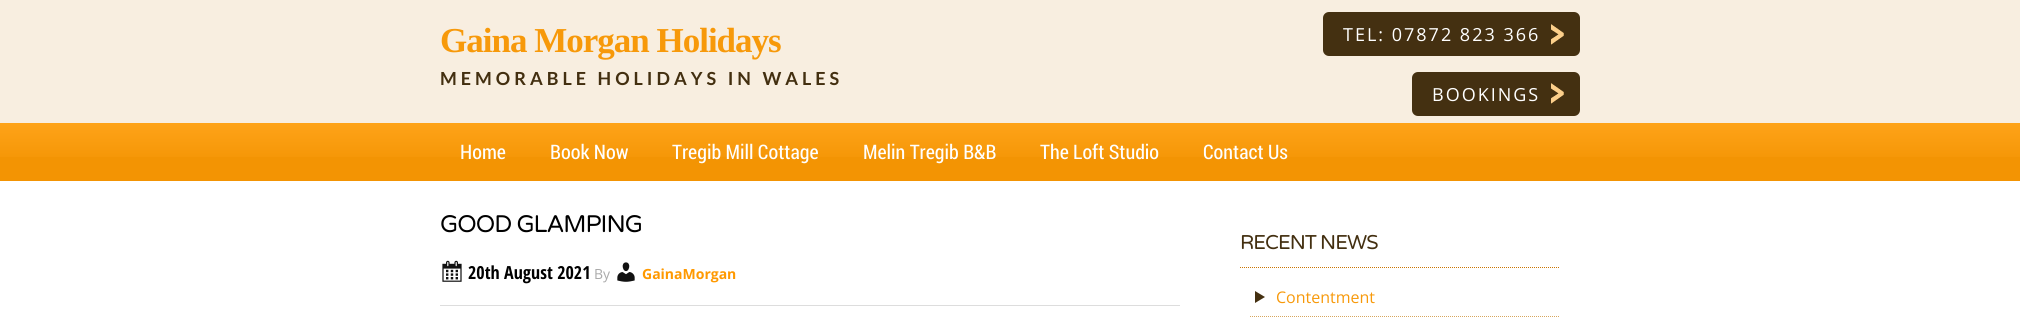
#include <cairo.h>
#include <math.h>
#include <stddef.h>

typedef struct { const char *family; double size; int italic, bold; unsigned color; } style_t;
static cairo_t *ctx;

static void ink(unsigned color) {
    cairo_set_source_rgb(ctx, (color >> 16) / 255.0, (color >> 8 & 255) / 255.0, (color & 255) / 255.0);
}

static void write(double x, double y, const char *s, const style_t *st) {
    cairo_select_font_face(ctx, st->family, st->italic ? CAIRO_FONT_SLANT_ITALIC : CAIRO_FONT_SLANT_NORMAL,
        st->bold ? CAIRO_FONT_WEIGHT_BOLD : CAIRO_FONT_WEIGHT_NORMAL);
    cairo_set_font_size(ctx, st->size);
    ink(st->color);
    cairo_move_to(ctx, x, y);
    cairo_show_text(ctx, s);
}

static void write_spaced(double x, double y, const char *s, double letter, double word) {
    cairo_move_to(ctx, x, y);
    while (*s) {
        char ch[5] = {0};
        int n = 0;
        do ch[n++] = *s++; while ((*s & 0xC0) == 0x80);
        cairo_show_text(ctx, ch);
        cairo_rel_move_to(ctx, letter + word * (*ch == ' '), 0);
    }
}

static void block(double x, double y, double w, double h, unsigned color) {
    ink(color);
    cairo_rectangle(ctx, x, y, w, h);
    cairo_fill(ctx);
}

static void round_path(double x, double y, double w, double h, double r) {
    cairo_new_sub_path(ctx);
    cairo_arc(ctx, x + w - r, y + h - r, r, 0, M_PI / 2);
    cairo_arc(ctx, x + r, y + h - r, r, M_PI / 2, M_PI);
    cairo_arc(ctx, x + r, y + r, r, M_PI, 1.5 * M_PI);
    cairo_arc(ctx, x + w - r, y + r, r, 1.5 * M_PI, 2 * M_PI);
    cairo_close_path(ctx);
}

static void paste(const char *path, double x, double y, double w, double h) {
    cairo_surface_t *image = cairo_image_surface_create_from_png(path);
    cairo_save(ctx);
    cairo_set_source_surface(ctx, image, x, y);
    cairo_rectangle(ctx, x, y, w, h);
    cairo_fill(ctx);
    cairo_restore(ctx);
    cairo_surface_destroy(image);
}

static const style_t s1 = {"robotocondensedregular", 20, 0, 0, 0xffffff};
static const style_t s2 = {"Open Sans Condensed", 18, 0, 1, 0x000000};
static const style_t s3 = {"Open Sans", 14, 0, 0, 0xaaaaaa};
static const style_t s4 = {"Open Sans", 14, 0, 1, 0xff9900};
static const style_t s5 = {"Open Sans", 16, 0, 0, 0xf7990a};

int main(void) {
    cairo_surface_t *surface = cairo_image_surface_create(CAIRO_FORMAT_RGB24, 2020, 321);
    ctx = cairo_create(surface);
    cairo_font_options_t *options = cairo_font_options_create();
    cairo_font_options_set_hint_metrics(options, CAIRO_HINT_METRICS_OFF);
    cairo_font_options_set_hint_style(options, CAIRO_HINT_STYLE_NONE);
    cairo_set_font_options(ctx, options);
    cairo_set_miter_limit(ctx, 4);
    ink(0xffffff);
    cairo_paint(ctx);
    block(0, 0, 2020, 123, 0xf8eee0);
    cairo_select_font_face(ctx, "Liberation Serif", CAIRO_FONT_SLANT_NORMAL, CAIRO_FONT_WEIGHT_BOLD);
    cairo_set_font_size(ctx, 35);
    ink(0xf7990a);
    write_spaced(440, 52, "Gaina Morgan Holidays", -1, 0);
    cairo_select_font_face(ctx, "Lato", CAIRO_FONT_SLANT_NORMAL, CAIRO_FONT_WEIGHT_BOLD);
    cairo_set_font_size(ctx, 18);
    ink(0x432f10);
    write_spaced(440, 85, "MEMORABLE HOLIDAYS IN WALES", 4, 0);
    ink(0x443011);
    round_path(1323, 12, 257, 44, 6);
    cairo_fill(ctx);
    cairo_select_font_face(ctx, "Open Sans", CAIRO_FONT_SLANT_NORMAL, CAIRO_FONT_WEIGHT_NORMAL);
    ink(0xffffff);
    write_spaced(1343, 41, "TEL: 07872 823 366", 2, 0);
    paste("pic1.png", 1551, 24, 13, 21);
    ink(0x443011);
    round_path(1412, 72, 168, 44, 6);
    cairo_fill(ctx);
    ink(0xffffff);
    write_spaced(1432, 101, "BOOKINGS", 2, 0);
    paste("pic1.png", 1551, 83, 13, 21);
    block(0, 157, 2020, 24, 0xf39403);
    paste("pic2.png", 0, 123, 2020, 34);
    write(460, 159, "Home", &s1);
    write(550, 159, "Book Now", &s1);
    write(672, 159, "Tregib Mill Cottage", &s1);
    write(863, 159, "Melin Tregib B&B", &s1);
    write(1040, 159, "The Loft Studio", &s1);
    write(1203, 159, "Contact Us", &s1);
    block(440, 305, 740, 1, 0xdddddd);
    cairo_select_font_face(ctx, "Varela Round", CAIRO_FONT_SLANT_NORMAL, CAIRO_FONT_WEIGHT_NORMAL);
    cairo_set_font_size(ctx, 24);
    ink(0x000000);
    write_spaced(440, 232, "GOOD GLAMPING", -1, 0);
    paste("pic3.png", 442, 260, 20, 22);
    write(468, 279, "20th August 2021", &s2);
    write(594, 279, "By", &s3);
    paste("pic4.png", 617, 262, 18, 20);
    write(642, 279, "GainaMorgan", &s4);
    cairo_new_path(ctx);
    cairo_move_to(ctx, 1240, 267.5);
    cairo_line_to(ctx, 1560, 267.5);
    ink(0xcb7503);
    cairo_set_line_width(ctx, 1);
    cairo_set_dash(ctx, (double[]){1, 1}, 2, 0);
    cairo_stroke(ctx);
    cairo_select_font_face(ctx, "Varela Round", CAIRO_FONT_SLANT_NORMAL, CAIRO_FONT_WEIGHT_NORMAL);
    cairo_set_font_size(ctx, 20);
    ink(0x432f10);
    write_spaced(1240, 249, "RECENT NEWS", -1, 0);
    cairo_new_path(ctx);
    cairo_move_to(ctx, 1250, 316.5);
    cairo_line_to(ctx, 1560, 316.5);
    ink(0xd7a65e);
    cairo_stroke(ctx);
    ink(0x443011);
    cairo_new_path(ctx);
    cairo_move_to(ctx, 1255, 291);
    cairo_line_to(ctx, 1265, 297);
    cairo_line_to(ctx, 1255, 303);
    cairo_close_path(ctx);
    cairo_fill(ctx);
    write(1276, 303, "Contentment", &s5);
    cairo_surface_write_to_png(surface, "screenshot.png");
    cairo_font_options_destroy(options);
    cairo_destroy(ctx);
    cairo_surface_destroy(surface);
    return 0;
}
